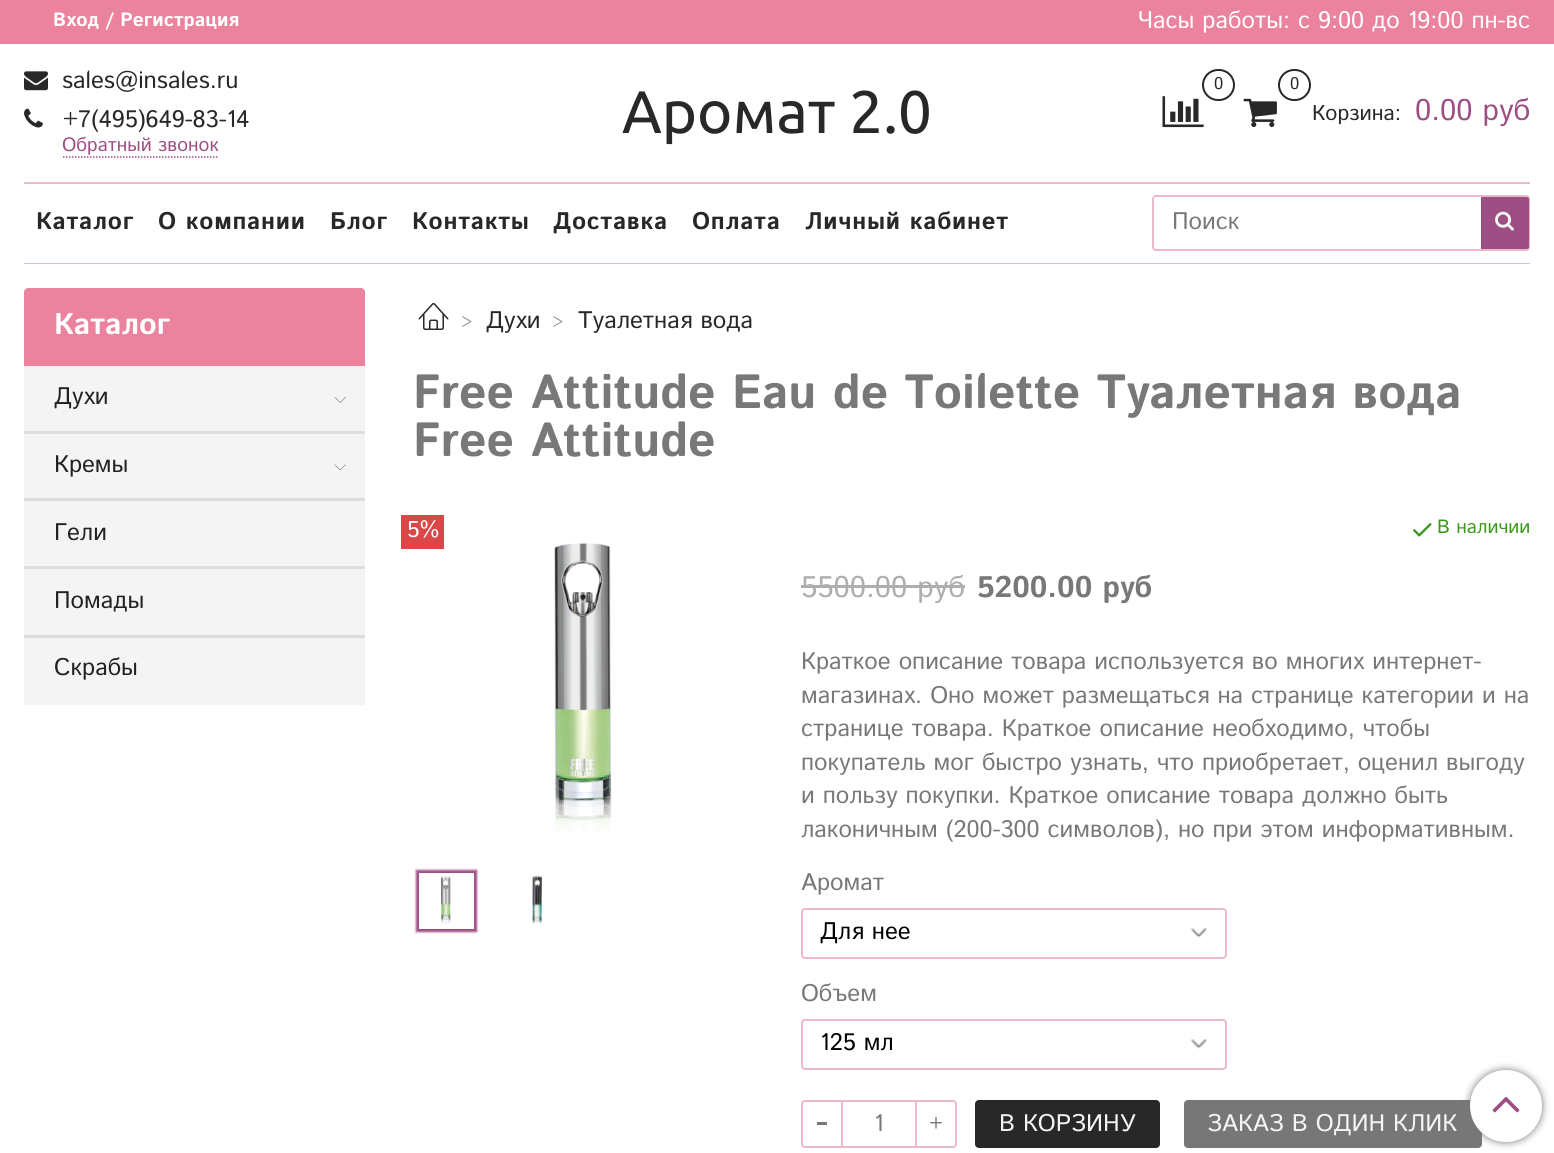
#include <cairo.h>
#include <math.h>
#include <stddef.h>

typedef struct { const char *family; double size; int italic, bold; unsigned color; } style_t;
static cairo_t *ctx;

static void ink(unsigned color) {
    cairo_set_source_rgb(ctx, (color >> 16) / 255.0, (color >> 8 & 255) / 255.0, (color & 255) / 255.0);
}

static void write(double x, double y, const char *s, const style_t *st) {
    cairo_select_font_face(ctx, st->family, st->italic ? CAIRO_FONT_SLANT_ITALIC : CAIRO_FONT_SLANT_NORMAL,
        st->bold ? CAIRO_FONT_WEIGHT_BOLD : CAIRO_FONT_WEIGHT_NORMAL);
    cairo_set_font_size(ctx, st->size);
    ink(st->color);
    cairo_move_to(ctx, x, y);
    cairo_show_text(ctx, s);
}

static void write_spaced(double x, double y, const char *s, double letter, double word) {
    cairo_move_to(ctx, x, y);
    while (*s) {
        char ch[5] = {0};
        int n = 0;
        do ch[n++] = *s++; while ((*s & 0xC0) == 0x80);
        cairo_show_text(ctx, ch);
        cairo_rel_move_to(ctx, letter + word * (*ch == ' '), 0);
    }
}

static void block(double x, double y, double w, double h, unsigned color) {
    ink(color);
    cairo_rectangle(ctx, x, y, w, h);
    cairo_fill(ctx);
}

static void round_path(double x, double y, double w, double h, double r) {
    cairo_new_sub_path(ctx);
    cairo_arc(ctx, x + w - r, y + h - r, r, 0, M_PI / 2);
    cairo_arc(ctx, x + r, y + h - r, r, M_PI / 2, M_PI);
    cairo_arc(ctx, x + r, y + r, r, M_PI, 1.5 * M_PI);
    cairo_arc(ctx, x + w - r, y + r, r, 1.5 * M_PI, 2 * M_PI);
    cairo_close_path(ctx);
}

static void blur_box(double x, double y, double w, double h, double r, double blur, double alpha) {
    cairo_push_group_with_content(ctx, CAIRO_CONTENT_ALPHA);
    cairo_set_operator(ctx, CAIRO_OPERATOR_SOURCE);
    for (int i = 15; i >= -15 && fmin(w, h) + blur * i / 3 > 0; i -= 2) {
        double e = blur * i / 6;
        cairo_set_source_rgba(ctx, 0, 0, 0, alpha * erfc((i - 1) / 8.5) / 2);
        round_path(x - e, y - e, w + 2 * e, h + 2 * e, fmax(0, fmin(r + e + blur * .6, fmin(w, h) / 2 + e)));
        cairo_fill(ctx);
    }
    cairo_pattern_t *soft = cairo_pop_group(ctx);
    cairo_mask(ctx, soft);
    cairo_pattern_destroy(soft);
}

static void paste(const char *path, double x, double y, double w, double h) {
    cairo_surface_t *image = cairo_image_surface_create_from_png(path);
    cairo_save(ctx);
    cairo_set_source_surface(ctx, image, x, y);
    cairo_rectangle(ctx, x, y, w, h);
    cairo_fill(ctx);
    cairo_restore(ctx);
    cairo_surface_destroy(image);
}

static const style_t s1 = {"Istok Web", 19.25, 0, 1, 0xffffff};
static const style_t s2 = {"Istok Web", 24, 0, 0, 0xffffff};
static const style_t s3 = {"Istok Web", 24, 0, 0, 0x282828};
static const style_t s4 = {"Istok Web", 19.25, 0, 0, 0x9d4e83};
static const style_t s5 = {"Ubuntu", 60, 0, 0, 0x282828};
static const style_t s6 = {"Istok Web", 17, 0, 0, 0x282828};
static const style_t s7 = {"Istok Web", 21.5, 0, 0, 0x282828};
static const style_t s8 = {"Istok Web", 30, 0, 0, 0x9d4e83};
static const style_t s9 = {"Istok Web", 24, 0, 0, 0x787878};
static const style_t s10 = {"Istok Web", 30, 0, 1, 0xffffff};
static const style_t s11 = {"Istok Web", 24, 0, 0, 0x222222};
static const style_t s12 = {"Istok Web", 18, 0, 0, 0x939393};
static const style_t s13 = {"Istok Web", 48, 0, 1, 0x787878};
static const style_t s14 = {"Istok Web", 23, 0, 0, 0xffffff};
static const style_t s15 = {"Istok Web", 19.25, 0, 0, 0x3c981d};
static const style_t s16 = {"Istok Web", 30, 0, 0, 0xaeaeae};
static const style_t s17 = {"Istok Web", 30, 0, 1, 0x787878};
static const style_t s18 = {"Istok Web", 24, 0, 0, 0x000000};
static const style_t s19 = {"Istok Web", 24, 0, 0, 0xf4f4f4};

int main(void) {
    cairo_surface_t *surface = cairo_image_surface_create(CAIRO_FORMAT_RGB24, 1554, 1153);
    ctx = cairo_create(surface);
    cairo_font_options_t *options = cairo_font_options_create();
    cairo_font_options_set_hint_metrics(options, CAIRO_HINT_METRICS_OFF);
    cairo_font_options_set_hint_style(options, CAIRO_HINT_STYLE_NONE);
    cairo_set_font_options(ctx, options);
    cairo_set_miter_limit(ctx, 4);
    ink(0xffffff);
    cairo_paint(ctx);
    block(0, 0, 1554, 44, 0xeb839f);
    write(53, 26, "Вход / Регистрация", &s1);
    write(1138, 28, "Часы работы: с 9:00 до 19:00 пн-вс", &s2);
    paste("pic1.png", 24, 71, 24, 20);
    write(62, 88, "sales@insales.ru", &s3);
    paste("pic2.png", 24, 108, 19, 20);
    write(63, 127, "+7(495)649-83-14", &s3);
    cairo_new_path(ctx);
    cairo_move_to(ctx, 63, 157);
    cairo_line_to(ctx, 219, 157);
    ink(0x9d4e83);
    cairo_set_line_width(ctx, 1.5);
    cairo_set_dash(ctx, (double[]){1.5, 1.5}, 2, 0);
    cairo_stroke(ctx);
    write(62, 151, "Обратный звонок", &s4);
    write(622, 133, "Аромат 2.0", &s5);
    paste("pic3.png", 1162, 96, 42, 32);
    round_path(1203, 70, 31, 30, 15);
    cairo_set_line_width(ctx, 2);
    cairo_set_dash(ctx, NULL, 0, 0);
    cairo_stroke(ctx);
    write(1214, 89, "0", &s6);
    round_path(1279, 70, 31, 30, 15);
    cairo_stroke(ctx);
    write(1290, 89, "0", &s6);
    paste("pic4.png", 1243, 98, 34, 30);
    write(1312, 120, "Корзина:", &s7);
    write(1415, 120, "0.00 руб", &s8);
    block(24, 182, 1506, 2, 0xebbac7);
    block(24, 263, 1506, 1, 0xebbac7);
    cairo_select_font_face(ctx, "Istok Web", CAIRO_FONT_SLANT_NORMAL, CAIRO_FONT_WEIGHT_BOLD);
    cairo_set_font_size(ctx, 24);
    ink(0x282828);
    write_spaced(36, 229, "Каталог", 0.75, 0);
    write_spaced(158, 229, "О компании", 0.75, 0);
    write_spaced(330, 229, "Блог", 0.75, 0);
    write_spaced(412, 229, "Контакты", 0.75, 0);
    write_spaced(553, 229, "Доставка", 0.75, 0);
    write_spaced(692, 229, "Оплата", 0.75, 0);
    write_spaced(805, 229, "Личный кабинет", 0.75, 0);
    round_path(1153, 196, 376, 54, 3);
    ink(0xebbac7);
    cairo_stroke(ctx);
    write(1172, 229, "Поиск", &s9);
    ink(0x9d4e83);
    cairo_new_path(ctx);
    cairo_move_to(ctx, 1481, 197);
    cairo_line_to(ctx, 1527, 197);
    cairo_curve_to(ctx, 1528, 197, 1529, 198, 1529, 199);
    cairo_line_to(ctx, 1529, 247);
    cairo_curve_to(ctx, 1529, 248, 1528, 249, 1527, 249);
    cairo_line_to(ctx, 1481, 249);
    cairo_close_path(ctx);
    cairo_fill(ctx);
    paste("pic5.png", 1495, 211, 19, 20);
    ink(0xeb839f);
    cairo_new_path(ctx);
    cairo_move_to(ctx, 28, 288);
    cairo_line_to(ctx, 361, 288);
    cairo_curve_to(ctx, 363, 288, 365, 290, 365, 292);
    cairo_line_to(ctx, 365, 366);
    cairo_line_to(ctx, 24, 366);
    cairo_line_to(ctx, 24, 292);
    cairo_curve_to(ctx, 24, 290, 26, 288, 28, 288);
    cairo_close_path(ctx);
    cairo_fill(ctx);
    write(54, 334, "Каталог", &s10);
    block(24, 366, 341, 339, 0xf4f4f4);
    block(24, 431, 341, 3, 0xdddddd);
    write(54, 404, "Духи", &s11);
    paste("pic6.png", 334, 397, 12, 6);
    block(24, 498, 341, 3, 0xdddddd);
    write(54, 472, "Кремы", &s11);
    paste("pic7.png", 334, 464, 12, 7);
    block(24, 566, 341, 3, 0xdddddd);
    write(54, 540, "Гели", &s11);
    block(24, 635, 341, 3, 0xdddddd);
    write(54, 608, "Помады", &s11);
    write(54, 675, "Скрабы", &s11);
    paste("pic8.png", 418, 302, 31, 28);
    write(461, 328, ">", &s12);
    write(486, 328, "Духи", &s3);
    write(552, 328, ">", &s12);
    write(578, 328, "Туалетная вода", &s3);
    write(413, 408, "Free Attitude Eau de Toilette Туалетная вода", &s13);
    write(413, 456, "Free Attitude", &s13);
    block(401, 515, 43, 34, 0xdc4646);
    write(407, 537, "5%", &s14);
    paste("pic9.png", 554, 543, 58, 289);
    cairo_save(ctx);
    cairo_set_fill_rule(ctx, CAIRO_FILL_RULE_EVEN_ODD);
    cairo_new_path(ctx);
    cairo_move_to(ctx, 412, 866);
    cairo_line_to(ctx, 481, 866);
    cairo_line_to(ctx, 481, 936);
    cairo_line_to(ctx, 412, 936);
    cairo_close_path(ctx);
    cairo_move_to(ctx, 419, 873);
    cairo_line_to(ctx, 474, 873);
    cairo_line_to(ctx, 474, 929);
    cairo_line_to(ctx, 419, 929);
    cairo_close_path(ctx);
    cairo_clip(ctx);
    ink(0x9d4e83);
    blur_box(416, 870, 61, 62, 0, 1, 1);
    cairo_restore(ctx);
    paste("pic10.png", 441, 876, 10, 49);
    paste("pic11.png", 532, 875, 10, 50);
    paste("pic12.png", 1413, 523, 19, 14);
    write(1437, 533, "В наличии", &s15);
    write(801, 597, "5500.00 руб", &s16);
    block(801, 585, 164, 3, 0xaeaeae);
    write(977, 597, "5200.00 руб", &s17);
    write(801, 669, "Краткое описание товара используется во многих интернет-", &s9);
    write(801, 703, "магазинах. Оно может размещаться на странице категории и на", &s9);
    write(801, 736, "странице товара. Краткое описание необходимо, чтобы", &s9);
    write(801, 770, "покупатель мог быстро узнать, что приобретает, оценил выгоду", &s9);
    write(801, 803, "и пользу покупки. Краткое описание товара должно быть", &s9);
    write(801, 837, "лаконичным (200-300 символов), но при этом информативным.", &s9);
    write(801, 890, "Аромат", &s9);
    paste("pic13.png", 1190, 928, 17, 10);
    round_path(802, 909, 424, 49, 3);
    ink(0xebbac7);
    cairo_stroke(ctx);
    write(820, 939, "Для нее", &s18);
    write(801, 1001, "Объем", &s9);
    paste("pic13.png", 1190, 1039, 17, 10);
    round_path(802, 1020, 424, 49, 3);
    ink(0xebbac7);
    cairo_stroke(ctx);
    write(820, 1050, "125 мл", &s18);
    cairo_new_path(ctx);
    cairo_move_to(ctx, 805, 1101);
    cairo_line_to(ctx, 842, 1101);
    cairo_line_to(ctx, 842, 1147);
    cairo_line_to(ctx, 805, 1147);
    cairo_curve_to(ctx, 803.5, 1147, 802, 1145.5, 802, 1144);
    cairo_line_to(ctx, 802, 1104);
    cairo_curve_to(ctx, 802, 1102.5, 803.5, 1101, 805, 1101);
    cairo_close_path(ctx);
    ink(0xebbac7);
    cairo_stroke(ctx);
    block(817, 1122, 10, 3, 0x787878);
    block(843, 1100, 72, 2, 0xebbac7);
    block(843, 1146, 72, 2, 0xebbac7);
    write(874, 1131, "1", &s9);
    cairo_new_path(ctx);
    cairo_move_to(ctx, 916, 1101);
    cairo_line_to(ctx, 953, 1101);
    cairo_curve_to(ctx, 954.5, 1101, 956, 1102.5, 956, 1104);
    cairo_line_to(ctx, 956, 1144);
    cairo_curve_to(ctx, 956, 1145.5, 954.5, 1147, 953, 1147);
    cairo_line_to(ctx, 916, 1147);
    cairo_close_path(ctx);
    ink(0xebbac7);
    cairo_stroke(ctx);
    paste("pic14.png", 930, 1116, 12, 13);
    ink(0x282828);
    round_path(975, 1100, 185, 48, 4);
    cairo_fill(ctx);
    write(999, 1131, "В КОРЗИНУ", &s19);
    ink(0x777777);
    round_path(1184, 1100, 298, 48, 4);
    cairo_fill(ctx);
    write(1207, 1131, "ЗАКАЗ В ОДИН КЛИК", &s19);
    ink(0x777777);
    blur_box(1470, 1070, 72, 72, 36, 4, 1);
    ink(0xffffff);
    cairo_arc(ctx, 1506, 1106, 36, 0, 2 * M_PI);
    cairo_fill(ctx);
    paste("pic15.png", 1492, 1096, 28, 17);
    cairo_surface_write_to_png(surface, "screenshot.png");
    cairo_font_options_destroy(options);
    cairo_destroy(ctx);
    cairo_surface_destroy(surface);
    return 0;
}
